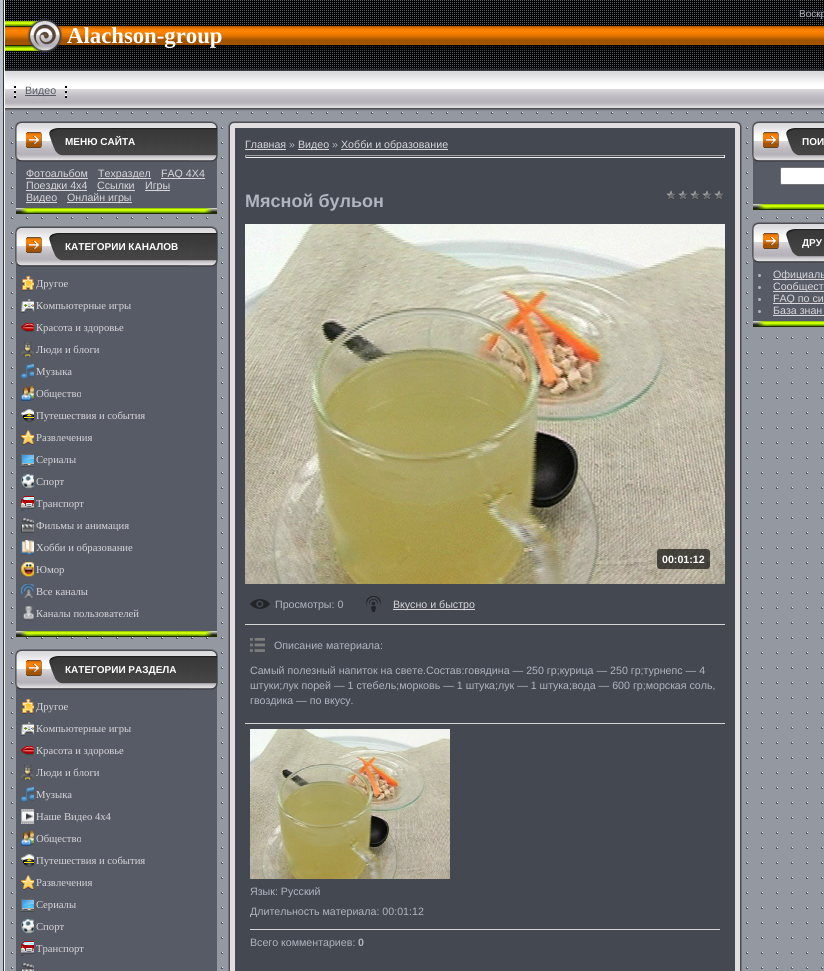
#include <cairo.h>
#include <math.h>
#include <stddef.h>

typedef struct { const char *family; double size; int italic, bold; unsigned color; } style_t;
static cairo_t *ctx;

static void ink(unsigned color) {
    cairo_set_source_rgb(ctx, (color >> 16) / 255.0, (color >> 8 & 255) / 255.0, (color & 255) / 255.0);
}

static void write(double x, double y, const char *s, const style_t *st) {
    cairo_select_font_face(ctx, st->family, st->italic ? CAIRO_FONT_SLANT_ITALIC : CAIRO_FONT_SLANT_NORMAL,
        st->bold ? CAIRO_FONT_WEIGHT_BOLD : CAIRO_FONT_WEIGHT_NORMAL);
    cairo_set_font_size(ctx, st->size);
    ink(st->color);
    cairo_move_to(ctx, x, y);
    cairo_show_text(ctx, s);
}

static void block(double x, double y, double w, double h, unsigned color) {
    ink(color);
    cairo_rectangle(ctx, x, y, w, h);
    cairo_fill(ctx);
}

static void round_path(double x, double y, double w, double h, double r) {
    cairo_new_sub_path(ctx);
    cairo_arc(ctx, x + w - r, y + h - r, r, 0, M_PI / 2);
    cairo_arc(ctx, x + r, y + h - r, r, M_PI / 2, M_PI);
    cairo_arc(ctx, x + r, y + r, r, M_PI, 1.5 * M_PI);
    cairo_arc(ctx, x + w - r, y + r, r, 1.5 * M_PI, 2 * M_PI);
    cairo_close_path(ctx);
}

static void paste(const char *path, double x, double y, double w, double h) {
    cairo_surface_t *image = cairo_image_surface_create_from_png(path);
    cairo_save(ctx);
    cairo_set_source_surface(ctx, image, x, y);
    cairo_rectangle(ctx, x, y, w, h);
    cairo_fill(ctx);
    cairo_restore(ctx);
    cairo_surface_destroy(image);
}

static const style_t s1 = {"Liberation Sans", 10, 0, 0, 0xb0b5c0};
static const style_t s2 = {"Liberation Serif", 22.75, 0, 1, 0xffffff};
static const style_t s3 = {"Liberation Sans", 10.65, 0, 0, 0x565b66};
static const style_t s4 = {"Liberation Sans", 10, 0, 1, 0xffffff};
static const style_t s5 = {"Liberation Sans", 10.65, 0, 0, 0xd9d7db};
static const style_t s6 = {"Liberation Serif", 10.65, 0, 0, 0xd9d7db};
static const style_t s7 = {"Liberation Sans", 10.65, 0, 0, 0xb0b5c0};
static const style_t s8 = {"Liberation Sans", 18, 0, 1, 0xb0b5c0};
static const style_t s9 = {"Liberation Sans", 10.65, 0, 1, 0xffffff};
static const style_t s10 = {"Liberation Sans", 10.65, 0, 1, 0xb0b5c0};

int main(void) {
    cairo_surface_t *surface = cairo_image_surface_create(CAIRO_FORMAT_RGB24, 824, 971);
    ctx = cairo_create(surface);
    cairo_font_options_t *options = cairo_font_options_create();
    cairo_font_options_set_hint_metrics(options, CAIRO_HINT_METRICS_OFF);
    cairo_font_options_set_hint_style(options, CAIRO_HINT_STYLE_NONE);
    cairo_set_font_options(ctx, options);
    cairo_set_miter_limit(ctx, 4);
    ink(0xbcc2cd);
    cairo_paint(ctx);
    block(3, 0, 1, 971, 0x333333);
    block(5, 111, 819, 860, 0x9498a1);
    paste("pic1.png", 11, 111, 812, 858);
    block(4, 0, 1, 971, 0xffffff);
    paste("pic2.png", 5, 0, 819, 71);
    write(799, 17, "Воскр", &s1);
    paste("pic3.png", 5, 18, 58, 52);
    write(67, 43, "Alachson-group", &s2);
    paste("pic4.png", 5, 71, 819, 40);
    paste("pic5.png", 14, 86, 2, 12);
    block(25, 95, 31, 1, 0x565b66);
    write(25, 94, "Видео", &s3);
    paste("pic5.png", 65, 86, 2, 12);
    block(16, 162, 201, 46, 0x565b66);
    block(26, 127, 182, 32, 0x9498a1);
    paste("pic6.png", 15, 121, 203, 41);
    write(65, 145, "МЕНЮ САЙТА", &s4);
    write(26, 177, "Фотоальбом", &s5);
    block(26, 178, 62, 1, 0xd9d7db);
    block(98, 178, 53, 1, 0xd9d7db);
    write(98, 177, "Техраздел", &s5);
    block(161, 178, 44, 1, 0xd9d7db);
    write(161, 177, "FAQ 4X4", &s5);
    block(26, 190, 61, 1, 0xd9d7db);
    write(26, 189, "Поездки 4х4", &s5);
    write(97, 189, "Ссылки", &s5);
    block(97, 190, 38, 1, 0xd9d7db);
    block(145, 190, 25, 1, 0xd9d7db);
    write(145, 189, "Игры", &s5);
    block(26, 202, 31, 1, 0xd9d7db);
    write(26, 201, "Видео", &s5);
    block(67, 202, 65, 1, 0xd9d7db);
    write(67, 201, "Онлайн игры", &s5);
    paste("pic7.png", 15, 208, 203, 6);
    block(16, 267, 201, 364, 0x565b66);
    block(26, 232, 182, 32, 0x9498a1);
    paste("pic6.png", 15, 226, 203, 41);
    write(65, 250, "КАТЕГОРИИ КАНАЛОВ", &s4);
    paste("pic8.png", 22, 276, 12, 15);
    write(36, 287, "Другое", &s6);
    paste("pic9.png", 21, 299, 13, 14);
    write(36, 309, "Компьютерные игры", &s6);
    paste("pic10.png", 21, 323, 13, 9);
    write(36, 331, "Красота и здоровье", &s6);
    paste("pic11.png", 21, 342, 13, 15);
    write(36, 353, "Люди и блоги", &s6);
    paste("pic12.png", 21, 364, 13, 15);
    write(36, 375, "Музыка", &s6);
    paste("pic13.png", 21, 386, 13, 15);
    write(36, 397, "Общество", &s6);
    paste("pic14.png", 21, 409, 13, 13);
    write(36, 419, "Путешествия и события", &s6);
    paste("pic15.png", 21, 430, 13, 15);
    write(36, 441, "Развлечения", &s6);
    paste("pic16.png", 21, 452, 13, 15);
    write(36, 463, "Сериалы", &s6);
    paste("pic17.png", 21, 474, 13, 15);
    write(36, 485, "Спорт", &s6);
    paste("pic18.png", 21, 496, 13, 15);
    write(36, 507, "Транспорт", &s6);
    paste("pic19.png", 21, 518, 13, 15);
    write(36, 529, "Фильмы и анимация", &s6);
    paste("pic20.png", 21, 540, 13, 15);
    write(36, 551, "Хобби и образование", &s6);
    paste("pic21.png", 21, 562, 13, 15);
    write(36, 573, "Юмор", &s6);
    paste("pic22.png", 21, 584, 13, 15);
    write(36, 595, "Все каналы", &s6);
    paste("pic23.png", 23, 606, 11, 15);
    write(36, 617, "Каналы пользователей", &s6);
    paste("pic7.png", 15, 631, 203, 6);
    block(16, 690, 201, 281, 0x565b66);
    block(26, 652, 182, 32, 0x9498a1);
    paste("pic6.png", 15, 649, 203, 41);
    write(65, 673, "КАТЕГОРИИ РАЗДЕЛА", &s4);
    paste("pic8.png", 22, 699, 12, 15);
    write(36, 710, "Другое", &s6);
    paste("pic9.png", 21, 722, 13, 14);
    write(36, 732, "Компьютерные игры", &s6);
    paste("pic10.png", 21, 746, 13, 9);
    write(36, 754, "Красота и здоровье", &s6);
    paste("pic11.png", 21, 765, 13, 15);
    write(36, 776, "Люди и блоги", &s6);
    paste("pic12.png", 21, 787, 13, 15);
    write(36, 798, "Музыка", &s6);
    paste("pic24.png", 21, 809, 13, 15);
    write(36, 820, "Наше Видео 4х4", &s6);
    paste("pic13.png", 21, 831, 13, 15);
    write(36, 842, "Общество", &s6);
    paste("pic14.png", 21, 854, 13, 13);
    write(36, 864, "Путешествия и события", &s6);
    paste("pic15.png", 21, 875, 13, 15);
    write(36, 886, "Развлечения", &s6);
    paste("pic16.png", 21, 897, 13, 15);
    write(36, 908, "Сериалы", &s6);
    paste("pic17.png", 21, 919, 13, 15);
    write(36, 930, "Спорт", &s6);
    paste("pic18.png", 21, 941, 13, 15);
    write(36, 952, "Транспорт", &s6);
    paste("pic25.png", 21, 963, 13, 8);
    paste("pic26.png", 228, 121, 7, 7);
    paste("pic27.png", 235, 121, 500, 7);
    paste("pic28.png", 735, 121, 7, 7);
    paste("pic29.png", 228, 128, 7, 843);
    block(235, 128, 500, 843, 0x444851);
    write(245, 148, "Главная", &s5);
    block(245, 149, 41, 1, 0xd9d7db);
    write(289, 148, "»", &s7);
    block(298, 149, 31, 1, 0xd9d7db);
    write(298, 148, "Видео", &s5);
    write(332, 148, "»", &s7);
    block(341, 149, 107, 1, 0xd9d7db);
    write(341, 148, "Хобби и образование", &s5);
    block(245, 155, 480, 1, 0x9f9f9f);
    block(724, 155, 1, 3, 0xeeeeee);
    block(245, 157, 480, 1, 0xeeeeee);
    block(245, 155, 1, 3, 0x9f9f9f);
    write(245, 207, "Мясной бульон", &s8);
    paste("pic30.png", 665, 189, 60, 11);
    paste("pic31.png", 245, 224, 480, 360);
    cairo_set_source_rgba(ctx, 0, 0, 0, 0.63);
    round_path(657, 549, 53, 20, 3);
    cairo_fill(ctx);
    write(662, 563, "00:01:12", &s9);
    paste("pic32.png", 250, 599, 20, 10);
    write(275, 608, "Просмотры: 0", &s7);
    paste("pic33.png", 366, 596, 15, 16);
    block(393, 609, 82, 1, 0xd9d7db);
    write(393, 608, "Вкусно и быстро", &s5);
    block(245, 624, 480, 1, 0xd6d6d6);
    paste("pic34.png", 250, 638, 15, 14);
    write(274, 649, "Описание материала:", &s7);
    write(250, 674, "Самый полезный напиток на свете.Состав:говядина — 250 гр;курица — 250 гр;турнепс — 4", &s7);
    write(250, 689, "штуки;лук порей — 1 стебель;морковь — 1 штука;лук — 1 штука;вода — 600 гр;морская соль,", &s7);
    write(250, 704, "гвоздика — по вкусу.", &s7);
    block(245, 723, 480, 1, 0xd6d6d6);
    paste("pic35.png", 250, 729, 200, 150);
    write(250, 895, "Язык: Русский", &s7);
    write(250, 915, "Длительность материала: 00:01:12", &s7);
    block(250, 929, 470, 1, 0xd6d6d6);
    write(250, 946, "Всего комментариев:", &s7);
    write(358, 946, "0", &s10);
    paste("pic36.png", 735, 128, 7, 843);
    block(753, 162, 71, 42, 0x565b66);
    paste("pic37.png", 752, 121, 72, 41);
    write(802, 145, "ПОИ", &s4);
    round_path(780.5, 167.5, 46, 17, 1.5);
    cairo_fill_preserve(ctx);
    ink(0x767676);
    cairo_set_line_width(ctx, 1);
    cairo_stroke(ctx);
    paste("pic38.png", 752, 204, 72, 6);
    block(753, 263, 71, 58, 0x565b66);
    paste("pic37.png", 752, 222, 72, 41);
    write(802, 246, "ДРУ", &s4);
    ink(0xb0b5c0);
    cairo_new_path(ctx);
    cairo_arc(ctx, 759.5, 275.5, 1.5, 0, 2 * M_PI);
    cairo_fill(ctx);
    block(773, 279, 51, 1, 0xd9d7db);
    write(773, 278, "Официаль", &s5);
    ink(0xb0b5c0);
    cairo_new_path(ctx);
    cairo_arc(ctx, 759.5, 287.5, 1.5, 0, 2 * M_PI);
    cairo_fill(ctx);
    block(773, 291, 51, 1, 0xd9d7db);
    write(773, 290, "Сообщест", &s5);
    ink(0xb0b5c0);
    cairo_new_path(ctx);
    cairo_arc(ctx, 759.5, 299.5, 1.5, 0, 2 * M_PI);
    cairo_fill(ctx);
    block(773, 303, 51, 1, 0xd9d7db);
    write(773, 302, "FAQ по си", &s5);
    ink(0xb0b5c0);
    cairo_new_path(ctx);
    cairo_arc(ctx, 759.5, 311.5, 1.5, 0, 2 * M_PI);
    cairo_fill(ctx);
    write(773, 314, "База знан", &s5);
    block(773, 315, 51, 1, 0xd9d7db);
    paste("pic38.png", 752, 321, 72, 6);
    cairo_surface_write_to_png(surface, "screenshot.png");
    cairo_font_options_destroy(options);
    cairo_destroy(ctx);
    cairo_surface_destroy(surface);
    return 0;
}
